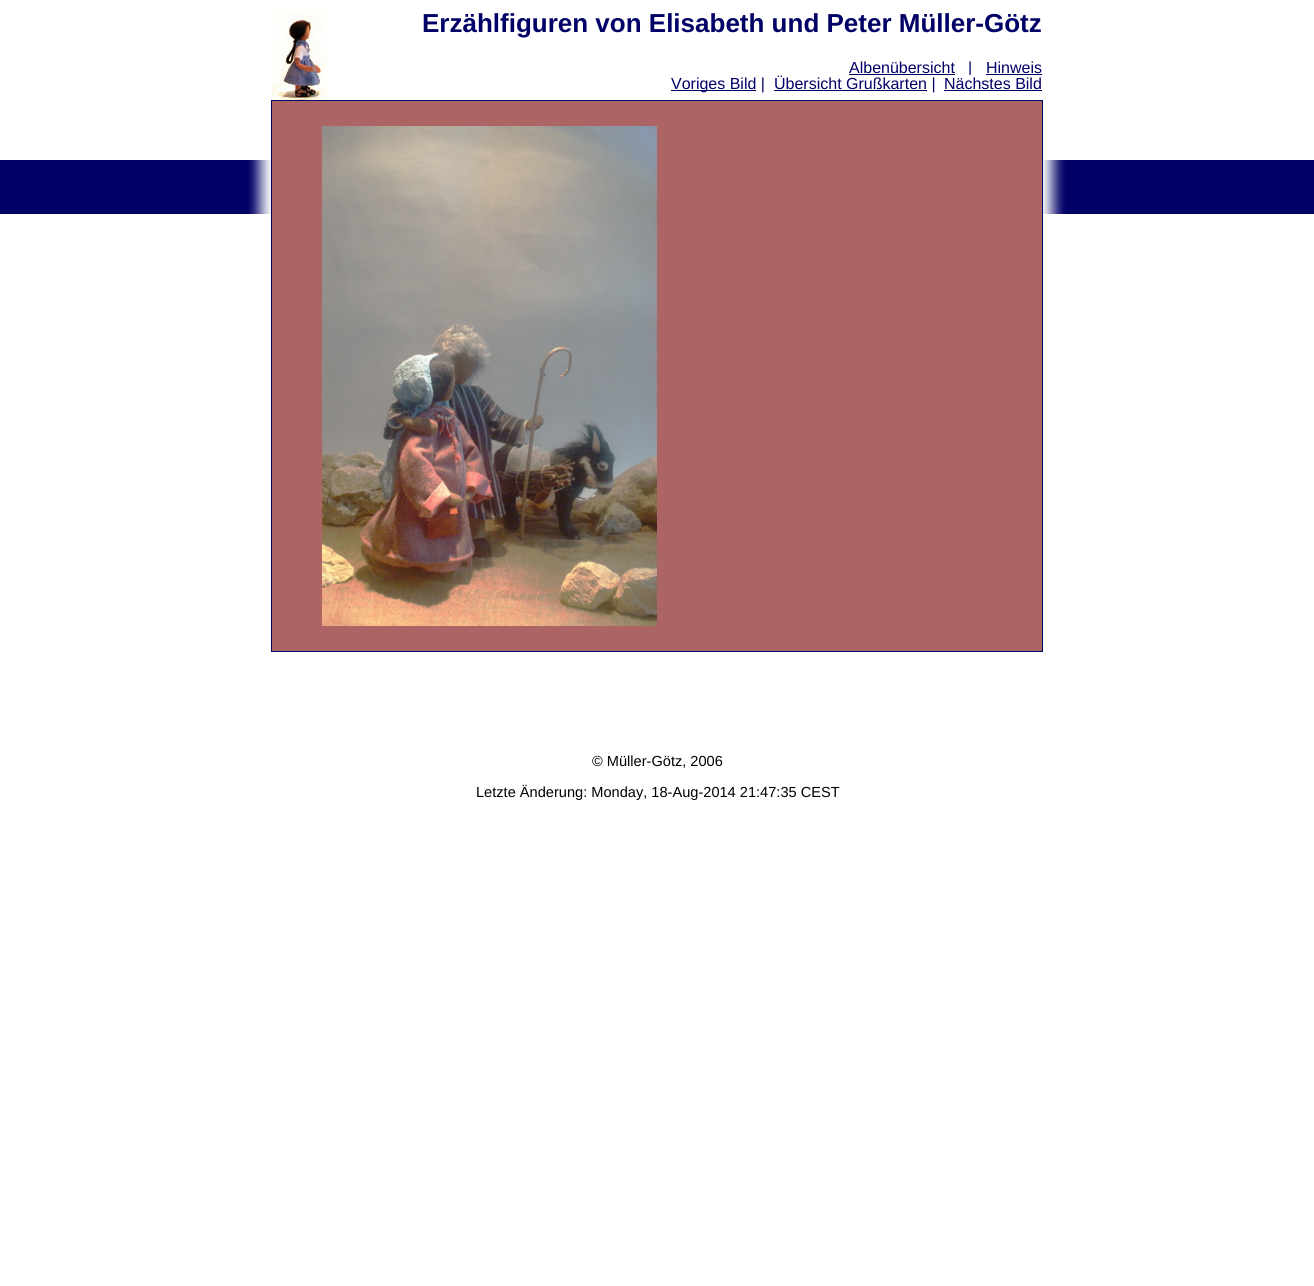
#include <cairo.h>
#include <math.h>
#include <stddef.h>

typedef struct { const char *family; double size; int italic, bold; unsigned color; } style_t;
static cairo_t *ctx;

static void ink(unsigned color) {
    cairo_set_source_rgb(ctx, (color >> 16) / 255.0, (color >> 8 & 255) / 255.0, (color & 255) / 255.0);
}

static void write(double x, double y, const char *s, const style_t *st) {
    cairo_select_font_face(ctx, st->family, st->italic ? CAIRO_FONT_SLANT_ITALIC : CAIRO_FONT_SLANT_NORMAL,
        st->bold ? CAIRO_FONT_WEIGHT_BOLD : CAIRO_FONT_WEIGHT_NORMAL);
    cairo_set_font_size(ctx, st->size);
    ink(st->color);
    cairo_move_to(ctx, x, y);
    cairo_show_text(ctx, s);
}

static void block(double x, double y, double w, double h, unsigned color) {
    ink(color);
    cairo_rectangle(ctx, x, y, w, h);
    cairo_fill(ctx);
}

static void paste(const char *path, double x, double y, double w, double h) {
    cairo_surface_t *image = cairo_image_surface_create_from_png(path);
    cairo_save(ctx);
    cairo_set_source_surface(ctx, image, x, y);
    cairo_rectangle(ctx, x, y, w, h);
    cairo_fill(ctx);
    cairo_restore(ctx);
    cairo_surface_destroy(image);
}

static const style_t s1 = {"Liberation Sans", 26, 0, 1, 0x000066};
static const style_t s2 = {"Liberation Sans", 16, 0, 0, 0x000066};
static const style_t s3 = {"Liberation Sans", 14.6, 0, 0, 0x000000};

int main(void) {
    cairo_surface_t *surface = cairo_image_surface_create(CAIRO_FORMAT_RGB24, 1314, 1286);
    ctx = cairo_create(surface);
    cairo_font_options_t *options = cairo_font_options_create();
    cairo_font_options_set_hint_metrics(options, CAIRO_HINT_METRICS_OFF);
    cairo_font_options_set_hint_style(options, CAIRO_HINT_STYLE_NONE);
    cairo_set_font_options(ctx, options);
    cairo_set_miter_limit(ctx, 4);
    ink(0xffffff);
    cairo_paint(ctx);
    paste("pic1.png", 272, 10, 55, 90);
    write(422, 32, "Erzählfiguren von Elisabeth und Peter Müller-Götz", &s1);
    write(849, 73, "Albenübersicht", &s2);
    block(849, 74, 106, 1, 0x000066);
    write(968, 73, "|", &s2);
    write(986, 73, "Hinweis", &s2);
    block(986, 74, 56, 1, 0x000066);
    block(671, 90, 85, 1, 0x000066);
    write(671, 89, "Voriges Bild |", &s2);
    block(774, 90, 153, 1, 0x000066);
    write(774, 89, "Übersicht Grußkarten |", &s2);
    write(944, 89, "Nächstes Bild", &s2);
    block(969, 75, 3, 2, 0xffffff);
    block(944, 90, 98, 1, 0x000066);
    block(0, 160, 1314, 54, 0x000066);
    paste("pic3.png", 248, 160, 817, 54);
    cairo_rectangle(ctx, 271.5, 100.5, 771, 551);
    cairo_set_line_width(ctx, 1);
    cairo_stroke(ctx);
    paste("pic2.png", 272, 101, 770, 550);
    write(592, 766, "© Müller-Götz, 2006", &s3);
    write(476, 797, "Letzte Änderung: Monday, 18-Aug-2014 21:47:35 CEST", &s3);
    cairo_surface_write_to_png(surface, "screenshot.png");
    cairo_font_options_destroy(options);
    cairo_destroy(ctx);
    cairo_surface_destroy(surface);
    return 0;
}
